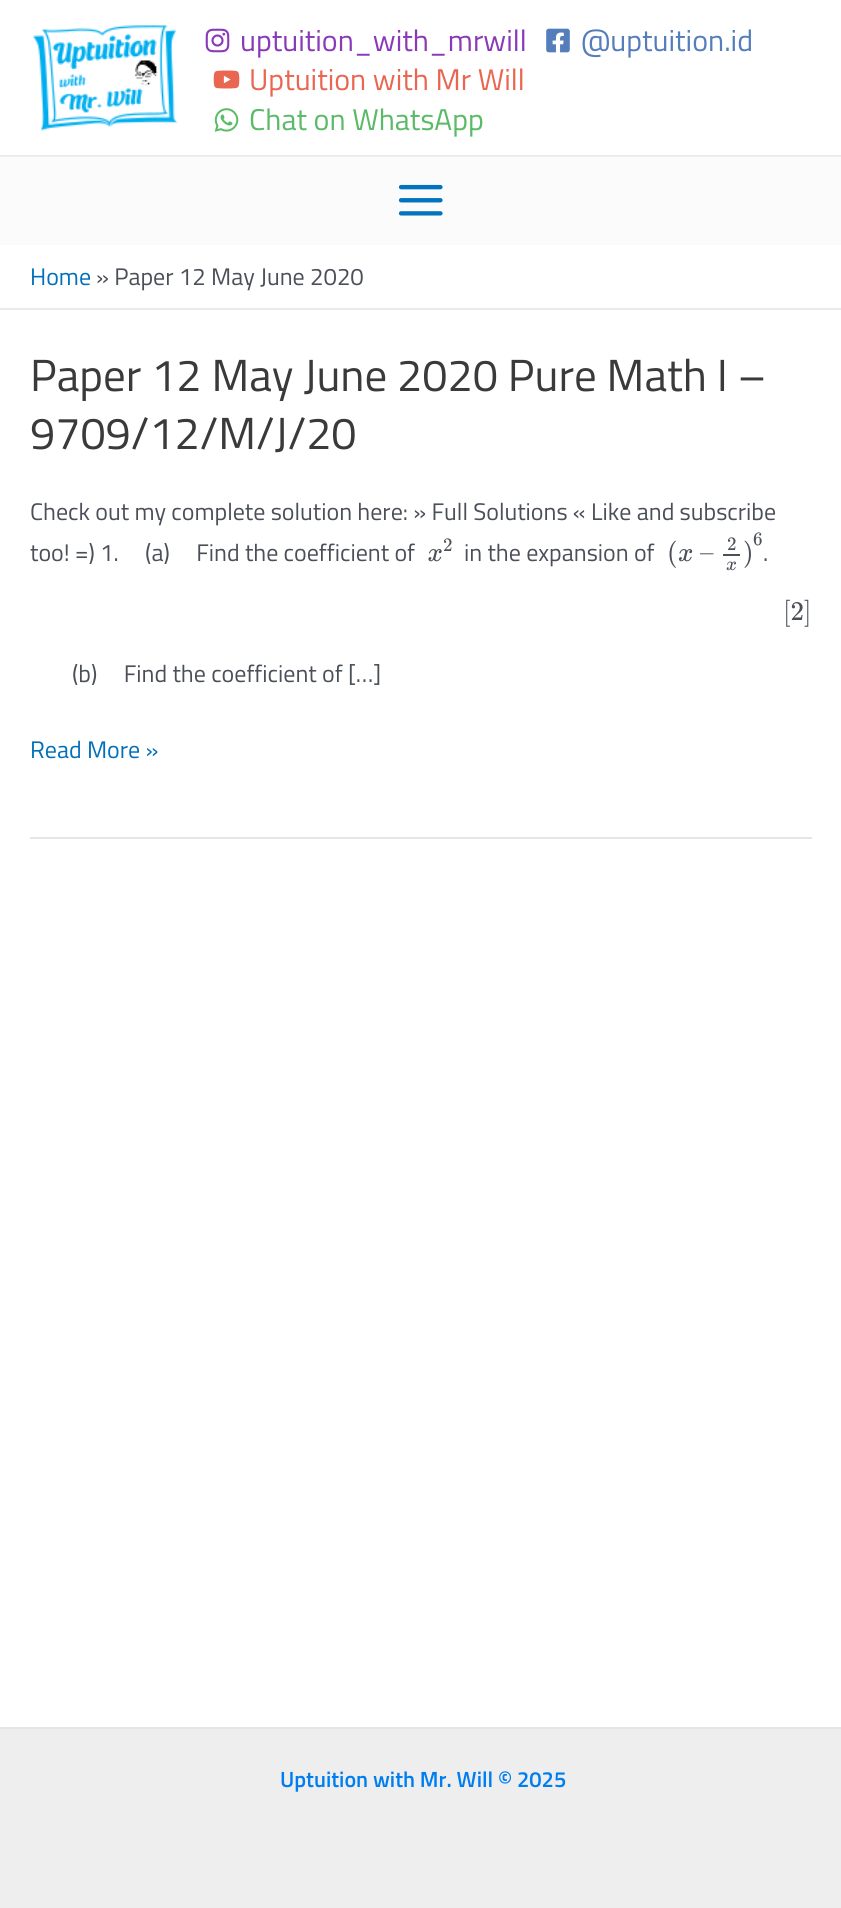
#include <cairo.h>
#include <math.h>
#include <stddef.h>

typedef struct { const char *family; double size; int italic, bold; unsigned color; } style_t;
static cairo_t *ctx;

static void ink(unsigned color) {
    cairo_set_source_rgb(ctx, (color >> 16) / 255.0, (color >> 8 & 255) / 255.0, (color & 255) / 255.0);
}

static void write(double x, double y, const char *s, const style_t *st) {
    cairo_select_font_face(ctx, st->family, st->italic ? CAIRO_FONT_SLANT_ITALIC : CAIRO_FONT_SLANT_NORMAL,
        st->bold ? CAIRO_FONT_WEIGHT_BOLD : CAIRO_FONT_WEIGHT_NORMAL);
    cairo_set_font_size(ctx, st->size);
    ink(st->color);
    cairo_move_to(ctx, x, y);
    cairo_show_text(ctx, s);
}

static void block(double x, double y, double w, double h, unsigned color) {
    ink(color);
    cairo_rectangle(ctx, x, y, w, h);
    cairo_fill(ctx);
}

static void paste(const char *path, double x, double y, double w, double h) {
    cairo_surface_t *image = cairo_image_surface_create_from_png(path);
    cairo_save(ctx);
    cairo_set_source_surface(ctx, image, x, y);
    cairo_rectangle(ctx, x, y, w, h);
    cairo_fill(ctx);
    cairo_restore(ctx);
    cairo_surface_destroy(image);
}

static const style_t s1 = {"Titillium Web", 30, 0, 0, 0x8a3ab9};
static const style_t s2 = {"Titillium Web", 30, 0, 0, 0x557dbc};
static const style_t s3 = {"Titillium Web", 30, 0, 0, 0xe96651};
static const style_t s4 = {"Titillium Web", 30, 0, 0, 0x5bba67};
static const style_t s5 = {"Titillium Web", 24, 0, 0, 0x0170b9};
static const style_t s6 = {"Titillium Web", 24, 0, 0, 0x4b4f58};
static const style_t s7 = {"Titillium Web", 45, 0, 0, 0x3a3a3a};
static const style_t s8 = {"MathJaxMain", 19, 0, 0, 0x4b4f58};
static const style_t s9 = {"MathJaxMain", 27, 0, 0, 0x4b4f58};
static const style_t s10 = {"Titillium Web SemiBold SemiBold", 22, 0, 0, 0x007ef0};

int main(void) {
    cairo_surface_t *surface = cairo_image_surface_create(CAIRO_FORMAT_RGB24, 841, 1908);
    ctx = cairo_create(surface);
    cairo_font_options_t *options = cairo_font_options_create();
    cairo_font_options_set_hint_metrics(options, CAIRO_HINT_METRICS_OFF);
    cairo_font_options_set_hint_style(options, CAIRO_HINT_STYLE_NONE);
    cairo_set_font_options(ctx, options);
    cairo_set_miter_limit(ctx, 4);
    ink(0xffffff);
    cairo_paint(ctx);
    block(0, 157, 841, 88, 0xfbfbfb);
    block(0, 155, 841, 1, 0xeaeaea);
    block(0, 156, 841, 1, 0xefefef);
    paste("pic1.png", 32, 25, 146, 106);
    paste("pic2.png", 205, 28, 25, 25);
    write(240, 51, "uptuition_with_mrwill", &s1);
    paste("pic3.png", 546, 28, 24, 25);
    write(581, 51, "@uptuition.id", &s2);
    paste("pic4.png", 213, 70, 27, 19);
    write(249, 90, "Uptuition with Mr Will", &s3);
    paste("pic5.png", 214, 108, 25, 24);
    write(249, 130, "Chat on WhatsApp", &s4);
    paste("pic6.png", 398, 184, 45, 32);
    block(0, 308, 841, 2, 0xeaeaea);
    write(30, 285, "Home", &s5);
    write(96, 285, "» Paper 12 May June 2020", &s6);
    block(30, 837, 782, 2, 0xe5e5e5);
    write(30, 391, "Paper 12 May June 2020 Pure Math I –", &s7);
    write(30, 449, "9709/12/M/J/20", &s7);
    write(30, 520, "Check out my complete solution here: » Full Solutions « Like and subscribe", &s6);
    write(30, 561, "too! =) 1.     (a)     Find the coefficient of", &s6);
    write(443, 551, "2", &s8);
    paste("pic7.png", 428, 549, 14, 13);
    write(464, 561, "in the expansion of", &s6);
    write(667, 561, "(", &s9);
    paste("pic8.png", 679, 549, 14, 13);
    write(700, 561, "–", &s9);
    write(727, 550, "2", &s8);
    block(723, 554, 17, 2, 0x4b4f58);
    paste("pic9.png", 726, 561, 10, 10);
    write(743, 561, ")", &s9);
    write(753, 545, "6", &s8);
    write(763, 561, ".", &s6);
    write(783, 620, "[2]", &s9);
    write(72, 682, "(b)     Find the coefficient of […]", &s6);
    write(30, 758, "Read More »", &s5);
    block(0, 1729, 841, 179, 0xeeeeee);
    block(0, 1727, 841, 2, 0xe5e5e5);
    write(280, 1787, "Uptuition with Mr. Will © 2025", &s10);
    cairo_surface_write_to_png(surface, "screenshot.png");
    cairo_font_options_destroy(options);
    cairo_destroy(ctx);
    cairo_surface_destroy(surface);
    return 0;
}
